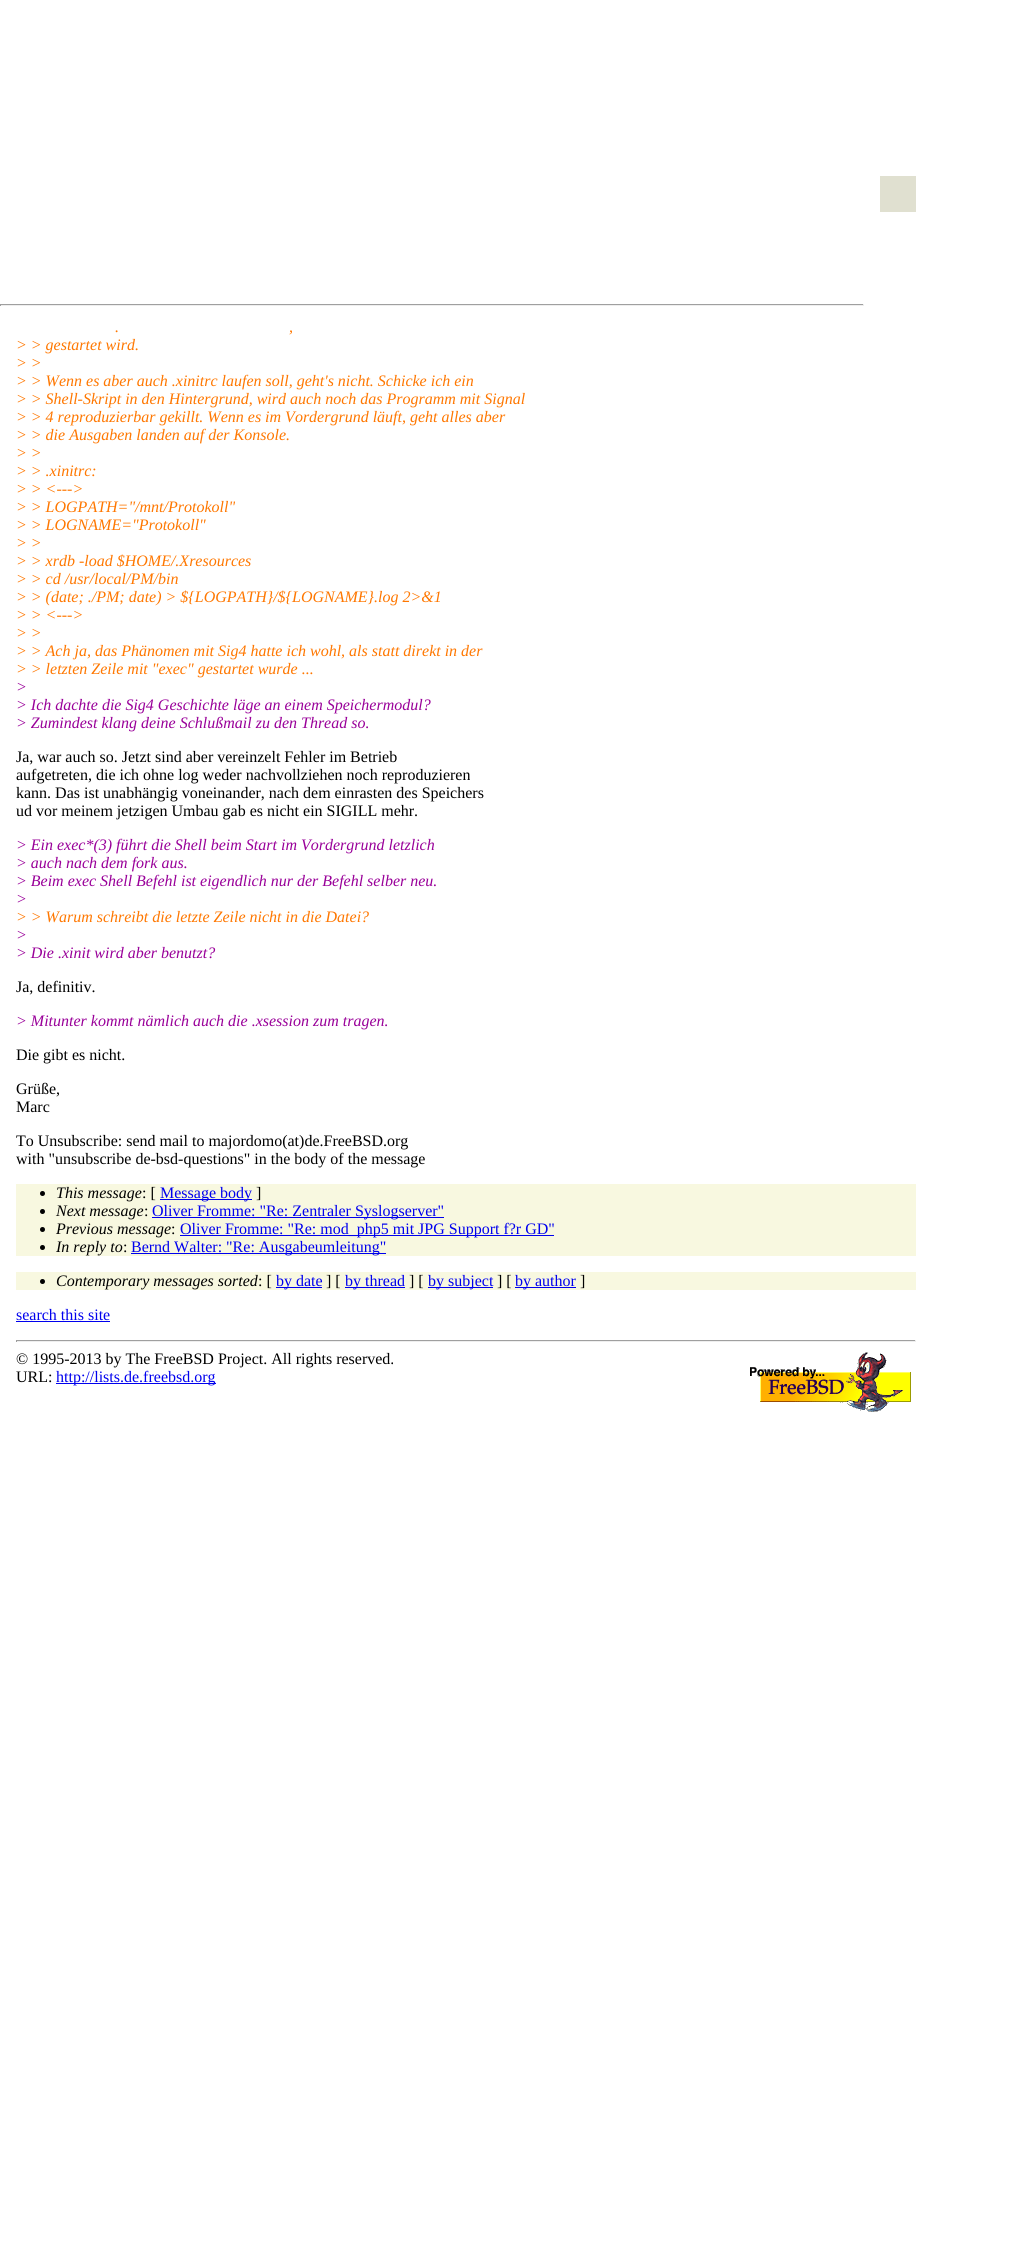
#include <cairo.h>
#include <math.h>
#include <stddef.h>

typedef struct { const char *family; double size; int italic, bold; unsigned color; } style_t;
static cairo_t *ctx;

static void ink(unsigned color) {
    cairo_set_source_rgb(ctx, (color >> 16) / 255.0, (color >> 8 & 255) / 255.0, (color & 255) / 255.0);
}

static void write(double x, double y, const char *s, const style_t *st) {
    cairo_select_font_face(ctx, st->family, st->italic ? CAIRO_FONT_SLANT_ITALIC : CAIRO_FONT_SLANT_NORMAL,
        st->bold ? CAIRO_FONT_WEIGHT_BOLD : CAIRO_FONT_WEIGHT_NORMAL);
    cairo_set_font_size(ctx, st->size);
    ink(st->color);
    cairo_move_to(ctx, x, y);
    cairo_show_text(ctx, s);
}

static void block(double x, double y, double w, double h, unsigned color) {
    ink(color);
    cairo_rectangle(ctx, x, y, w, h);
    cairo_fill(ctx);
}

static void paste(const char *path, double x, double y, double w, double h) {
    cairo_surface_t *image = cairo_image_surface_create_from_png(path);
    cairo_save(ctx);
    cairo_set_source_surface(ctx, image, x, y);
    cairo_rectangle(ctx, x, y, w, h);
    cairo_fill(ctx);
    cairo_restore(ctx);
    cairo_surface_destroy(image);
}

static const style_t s1 = {"Liberation Serif", 16, 1, 0, 0xff7700};
static const style_t s2 = {"Liberation Serif", 16, 1, 0, 0x990099};
static const style_t s3 = {"Liberation Serif", 16, 0, 0, 0x000000};
static const style_t s4 = {"Liberation Serif", 16, 1, 0, 0x000000};
static const style_t s5 = {"Liberation Serif", 16, 0, 0, 0x0000ee};

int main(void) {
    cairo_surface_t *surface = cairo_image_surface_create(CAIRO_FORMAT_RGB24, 1015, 2267);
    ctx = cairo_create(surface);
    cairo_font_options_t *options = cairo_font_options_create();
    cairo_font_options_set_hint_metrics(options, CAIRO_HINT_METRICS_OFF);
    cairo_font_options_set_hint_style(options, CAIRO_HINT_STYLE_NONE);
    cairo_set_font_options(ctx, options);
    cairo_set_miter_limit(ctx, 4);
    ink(0xffffff);
    cairo_paint(ctx);
    block(0, 304, 864, 1, 0x9f9f9f);
    block(863, 304, 1, 2, 0xeeeeee);
    block(0, 305, 864, 1, 0xeeeeee);
    block(0, 304, 1, 2, 0x9f9f9f);
    block(880, 176, 36, 36, 0xe0e0d0);
    write(115, 332, ".", &s1);
    write(289, 332, ",", &s1);
    write(16, 350, "> > gestartet wird.", &s1);
    write(16, 368, "> >", &s1);
    write(16, 386, "> > Wenn es aber auch .xinitrc laufen soll, geht's nicht. Schicke ich ein", &s1);
    write(16, 404, "> > Shell-Skript in den Hintergrund, wird auch noch das Programm mit Signal", &s1);
    write(16, 422, "> > 4 reproduzierbar gekillt. Wenn es im Vordergrund läuft, geht alles aber", &s1);
    write(16, 440, "> > die Ausgaben landen auf der Konsole.", &s1);
    write(16, 458, "> >", &s1);
    write(16, 476, "> > .xinitrc:", &s1);
    write(16, 494, "> > <--->", &s1);
    write(16, 512, "> > LOGPATH=\"/mnt/Protokoll\"", &s1);
    write(16, 530, "> > LOGNAME=\"Protokoll\"", &s1);
    write(16, 548, "> >", &s1);
    write(16, 566, "> > xrdb -load $HOME/.Xresources", &s1);
    write(16, 584, "> > cd /usr/local/PM/bin", &s1);
    write(16, 602, "> > (date; ./PM; date) > ${LOGPATH}/${LOGNAME}.log 2>&1", &s1);
    write(16, 620, "> > <--->", &s1);
    write(16, 638, "> >", &s1);
    write(16, 656, "> > Ach ja, das Phänomen mit Sig4 hatte ich wohl, als statt direkt in der", &s1);
    write(16, 674, "> > letzten Zeile mit \"exec\" gestartet wurde ...", &s1);
    write(16, 692, ">", &s2);
    write(16, 710, "> Ich dachte die Sig4 Geschichte läge an einem Speichermodul?", &s2);
    write(16, 728, "> Zumindest klang deine Schlußmail zu den Thread so.", &s2);
    write(16, 762, "Ja, war auch so. Jetzt sind aber vereinzelt Fehler im Betrieb", &s3);
    write(16, 780, "aufgetreten, die ich ohne log weder nachvollziehen noch reproduzieren", &s3);
    write(16, 798, "kann. Das ist unabhängig voneinander, nach dem einrasten des Speichers", &s3);
    write(16, 816, "ud vor meinem jetzigen Umbau gab es nicht ein SIGILL mehr.", &s3);
    write(16, 850, "> Ein exec*(3) führt die Shell beim Start im Vordergrund letzlich", &s2);
    write(16, 868, "> auch nach dem fork aus.", &s2);
    write(16, 886, "> Beim exec Shell Befehl ist eigendlich nur der Befehl selber neu.", &s2);
    write(16, 904, ">", &s2);
    write(16, 922, "> > Warum schreibt die letzte Zeile nicht in die Datei?", &s1);
    write(16, 940, ">", &s2);
    write(16, 958, "> Die .xinit wird aber benutzt?", &s2);
    write(16, 992, "Ja, definitiv.", &s3);
    write(16, 1026, "> Mitunter kommt nämlich auch die .xsession zum tragen.", &s2);
    write(16, 1060, "Die gibt es nicht.", &s3);
    write(16, 1094, "Grüße,", &s3);
    write(16, 1112, "Marc", &s3);
    write(16, 1146, "To Unsubscribe: send mail to majordomo(at)de.FreeBSD.org", &s3);
    write(16, 1164, "with \"unsubscribe de-bsd-questions\" in the body of the message", &s3);
    block(16, 1184, 900, 72, 0xf8f8e0);
    ink(0x000000);
    cairo_new_path(ctx);
    cairo_arc(ctx, 42.5, 1193.5, 2.5, 0, 2 * M_PI);
    cairo_fill(ctx);
    write(56, 1198, "This message", &s4);
    write(142, 1198, ": [", &s3);
    block(160, 1199, 92, 1, 0x0000ee);
    write(160, 1198, "Message body", &s5);
    write(256, 1198, "]", &s3);
    cairo_new_path(ctx);
    cairo_arc(ctx, 42.5, 1211.5, 2.5, 0, 2 * M_PI);
    cairo_fill(ctx);
    write(56, 1216, "Next message", &s4);
    write(144, 1216, ":", &s3);
    block(152, 1217, 292, 1, 0x0000ee);
    write(152, 1216, "Oliver Fromme: \"Re: Zentraler Syslogserver\"", &s5);
    ink(0x000000);
    cairo_new_path(ctx);
    cairo_arc(ctx, 42.5, 1229.5, 2.5, 0, 2 * M_PI);
    cairo_fill(ctx);
    write(56, 1234, "Previous message", &s4);
    write(171, 1234, ":", &s3);
    block(180, 1235, 374, 1, 0x0000ee);
    write(180, 1234, "Oliver Fromme: \"Re: mod_php5 mit JPG Support f?r GD\"", &s5);
    ink(0x000000);
    cairo_new_path(ctx);
    cairo_arc(ctx, 42.5, 1247.5, 2.5, 0, 2 * M_PI);
    cairo_fill(ctx);
    write(56, 1252, "In reply to", &s4);
    write(123, 1252, ":", &s3);
    block(131, 1253, 255, 1, 0x0000ee);
    write(131, 1252, "Bernd Walter: \"Re: Ausgabeumleitung\"", &s5);
    block(16, 1272, 900, 18, 0xf8f8e0);
    ink(0x000000);
    cairo_new_path(ctx);
    cairo_arc(ctx, 42.5, 1281.5, 2.5, 0, 2 * M_PI);
    cairo_fill(ctx);
    write(56, 1286, "Contemporary messages sorted", &s4);
    write(258, 1286, ": [", &s3);
    block(276, 1287, 46, 1, 0x0000ee);
    write(276, 1286, "by date", &s5);
    write(326, 1286, "] [", &s3);
    block(345, 1287, 60, 1, 0x0000ee);
    write(345, 1286, "by thread", &s5);
    write(409, 1286, "] [", &s3);
    block(428, 1287, 65, 1, 0x0000ee);
    write(428, 1286, "by subject", &s5);
    write(497, 1286, "] [", &s3);
    block(515, 1287, 61, 1, 0x0000ee);
    write(515, 1286, "by author", &s5);
    write(580, 1286, "]", &s3);
    write(16, 1320, "search this site", &s5);
    block(16, 1321, 94, 1, 0x0000ee);
    block(16, 1340, 900, 1, 0x9f9f9f);
    block(915, 1340, 1, 2, 0xeeeeee);
    block(16, 1341, 900, 1, 0xeeeeee);
    block(16, 1340, 1, 2, 0x9f9f9f);
    write(16, 1364, "© 1995-2013 by The FreeBSD Project. All rights reserved.", &s3);
    paste("pic1.png", 750, 1352, 161, 60);
    write(16, 1382, "URL:", &s3);
    block(56, 1383, 160, 1, 0x0000ee);
    write(56, 1382, "http://lists.de.freebsd.org", &s5);
    cairo_surface_write_to_png(surface, "screenshot.png");
    cairo_font_options_destroy(options);
    cairo_destroy(ctx);
    cairo_surface_destroy(surface);
    return 0;
}
